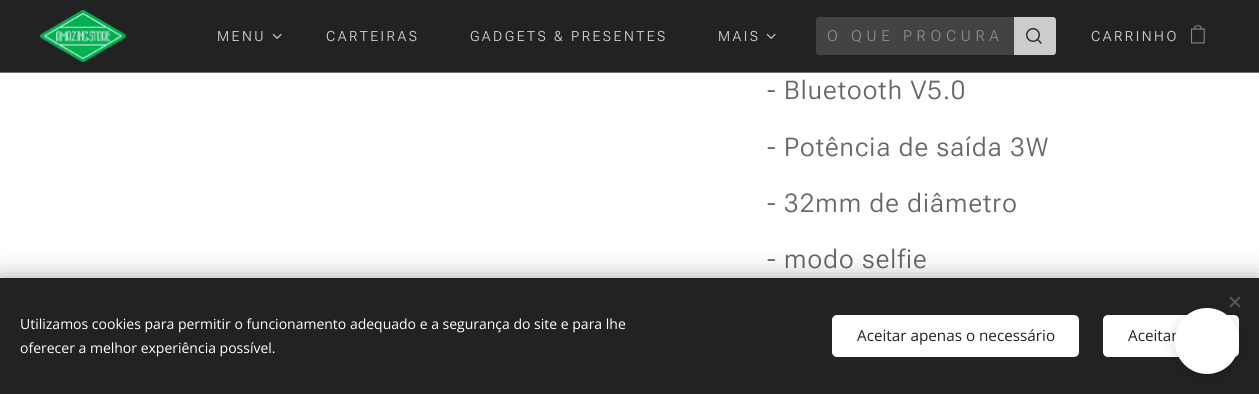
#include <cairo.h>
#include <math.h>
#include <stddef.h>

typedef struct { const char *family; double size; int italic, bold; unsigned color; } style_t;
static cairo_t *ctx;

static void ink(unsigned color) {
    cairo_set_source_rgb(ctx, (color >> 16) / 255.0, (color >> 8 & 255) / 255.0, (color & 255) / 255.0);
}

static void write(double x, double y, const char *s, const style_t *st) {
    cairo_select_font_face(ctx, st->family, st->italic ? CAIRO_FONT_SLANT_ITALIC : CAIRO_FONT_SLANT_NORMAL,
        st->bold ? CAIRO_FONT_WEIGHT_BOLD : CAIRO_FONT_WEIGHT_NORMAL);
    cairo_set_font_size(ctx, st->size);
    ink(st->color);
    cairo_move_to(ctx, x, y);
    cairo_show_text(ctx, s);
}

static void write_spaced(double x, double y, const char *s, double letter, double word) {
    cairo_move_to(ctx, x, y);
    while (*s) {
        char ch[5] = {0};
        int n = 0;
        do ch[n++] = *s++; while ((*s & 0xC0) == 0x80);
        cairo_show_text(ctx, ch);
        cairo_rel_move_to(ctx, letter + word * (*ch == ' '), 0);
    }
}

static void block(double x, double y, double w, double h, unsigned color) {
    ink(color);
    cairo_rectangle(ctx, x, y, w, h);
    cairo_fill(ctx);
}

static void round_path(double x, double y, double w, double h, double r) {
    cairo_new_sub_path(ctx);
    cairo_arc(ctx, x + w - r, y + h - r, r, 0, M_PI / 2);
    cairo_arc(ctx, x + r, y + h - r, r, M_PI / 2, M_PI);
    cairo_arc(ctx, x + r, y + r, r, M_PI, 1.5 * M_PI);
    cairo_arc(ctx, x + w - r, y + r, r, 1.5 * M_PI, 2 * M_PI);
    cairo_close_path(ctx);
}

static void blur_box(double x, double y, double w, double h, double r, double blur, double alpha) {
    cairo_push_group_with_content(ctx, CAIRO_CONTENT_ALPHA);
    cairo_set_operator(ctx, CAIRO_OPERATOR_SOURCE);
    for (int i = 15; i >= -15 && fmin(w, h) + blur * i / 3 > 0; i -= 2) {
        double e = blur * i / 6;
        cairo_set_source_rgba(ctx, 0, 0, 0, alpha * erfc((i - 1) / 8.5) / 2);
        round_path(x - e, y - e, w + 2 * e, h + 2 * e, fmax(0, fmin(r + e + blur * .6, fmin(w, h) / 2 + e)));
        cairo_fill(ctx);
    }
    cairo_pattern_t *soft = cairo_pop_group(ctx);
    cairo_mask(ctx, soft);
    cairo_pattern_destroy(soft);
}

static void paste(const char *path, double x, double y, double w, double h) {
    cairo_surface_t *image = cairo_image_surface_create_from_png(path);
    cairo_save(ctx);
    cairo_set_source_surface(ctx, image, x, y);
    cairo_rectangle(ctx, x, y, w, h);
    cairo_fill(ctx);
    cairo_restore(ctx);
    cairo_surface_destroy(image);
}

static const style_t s1 = {"Open Sans", 14, 0, 0, 0xffffff};
static const style_t s2 = {"Open Sans", 15.25, 0, 0, 0x222222};

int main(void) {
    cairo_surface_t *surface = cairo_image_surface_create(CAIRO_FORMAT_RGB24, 1259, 394);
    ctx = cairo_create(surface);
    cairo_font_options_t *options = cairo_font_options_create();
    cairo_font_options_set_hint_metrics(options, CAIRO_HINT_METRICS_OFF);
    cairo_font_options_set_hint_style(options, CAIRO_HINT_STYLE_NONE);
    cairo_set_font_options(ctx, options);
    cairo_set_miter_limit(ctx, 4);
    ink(0xffffff);
    cairo_paint(ctx);
    block(0, 0, 1259, 72, 0x222222);
    block(0, 72, 1259, 1, 0x6e6e6e);
    paste("pic1.png", 40, 10, 86, 52);
    cairo_select_font_face(ctx, "Roboto Flex Light", CAIRO_FONT_SLANT_NORMAL, CAIRO_FONT_WEIGHT_NORMAL);
    cairo_set_font_size(ctx, 14);
    ink(0xcccccc);
    write_spaced(217, 41, "MENU", 2.5, 0);
    paste("pic2.png", 272, 33, 10, 6);
    write_spaced(326, 41, "CARTEIRAS", 2.5, 0);
    write_spaced(470, 41, "GADGETS & PRESENTES", 2.5, 0);
    write_spaced(718, 41, "MAIS", 2.5, 0);
    paste("pic2.png", 766, 33, 10, 6);
    ink(0x434343);
    cairo_new_path(ctx);
    cairo_move_to(ctx, 819, 17);
    cairo_line_to(ctx, 1014, 17);
    cairo_line_to(ctx, 1014, 55);
    cairo_line_to(ctx, 819, 55);
    cairo_curve_to(ctx, 817.5, 55, 816, 53.5, 816, 52);
    cairo_line_to(ctx, 816, 20);
    cairo_curve_to(ctx, 816, 18.5, 817.5, 17, 819, 17);
    cairo_close_path(ctx);
    cairo_fill(ctx);
    cairo_set_font_size(ctx, 15.25);
    ink(0x888888);
    write_spaced(827, 41, "O QUE PROCURA", 4.75, 0);
    ink(0xcccccc);
    cairo_new_path(ctx);
    cairo_move_to(ctx, 1014, 17);
    cairo_line_to(ctx, 1053, 17);
    cairo_curve_to(ctx, 1054.5, 17, 1056, 18.5, 1056, 20);
    cairo_line_to(ctx, 1056, 52);
    cairo_curve_to(ctx, 1056, 53.5, 1054.5, 55, 1053, 55);
    cairo_line_to(ctx, 1014, 55);
    cairo_close_path(ctx);
    cairo_fill(ctx);
    paste("pic3.png", 1026, 28, 16, 16);
    cairo_set_font_size(ctx, 14);
    write_spaced(1091, 41, "CARRINHO", 2.5, 0);
    paste("pic4.png", 1191, 25, 14, 19);
    cairo_set_font_size(ctx, 25.75);
    ink(0x666666);
    write_spaced(767, 99, "- Bluetooth V5.0", 1.1, 0);
    write_spaced(767, 156, "- Potência de saída 3W", 1.1, 0);
    write_spaced(767, 212, "- 32mm de diâmetro", 1.1, 0);
    write_spaced(767, 268, "- modo selfie", 1.1, 0);
    ink(0x000000);
    blur_box(0, 278, 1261, 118, 0, 12.5, 0.33);
    block(0, 278, 1259, 116, 0x222222);
    ink(0x555555);
    cairo_new_path(ctx);
    cairo_move_to(ctx, 1229.5, 306);
    cairo_line_to(ctx, 1239, 296.5);
    cairo_line_to(ctx, 1240.5, 298);
    cairo_line_to(ctx, 1231, 307.5);
    cairo_close_path(ctx);
    cairo_fill(ctx);
    cairo_new_path(ctx);
    cairo_move_to(ctx, 1231, 296.5);
    cairo_line_to(ctx, 1240.5, 306);
    cairo_line_to(ctx, 1239, 307.5);
    cairo_line_to(ctx, 1229.5, 298);
    cairo_close_path(ctx);
    cairo_fill(ctx);
    write(20, 329, "Utilizamos cookies para permitir o funcionamento adequado e a segurança do site e para lhe", &s1);
    write(20, 353, "oferecer a melhor experiência possível.", &s1);
    round_path(832, 315, 247, 42, 5);
    cairo_fill(ctx);
    write(857, 341, "Aceitar apenas o necessário", &s2);
    ink(0xffffff);
    round_path(1103, 315, 136, 42, 5);
    cairo_fill(ctx);
    write(1128, 341, "Aceitar", &s2);
    ink(0x000000);
    blur_box(1175, 311, 64, 66, 32, 6, 0.15);
    ink(0xffffff);
    round_path(1175, 308, 64, 66, 32);
    cairo_fill(ctx);
    cairo_surface_write_to_png(surface, "screenshot.png");
    cairo_font_options_destroy(options);
    cairo_destroy(ctx);
    cairo_surface_destroy(surface);
    return 0;
}
